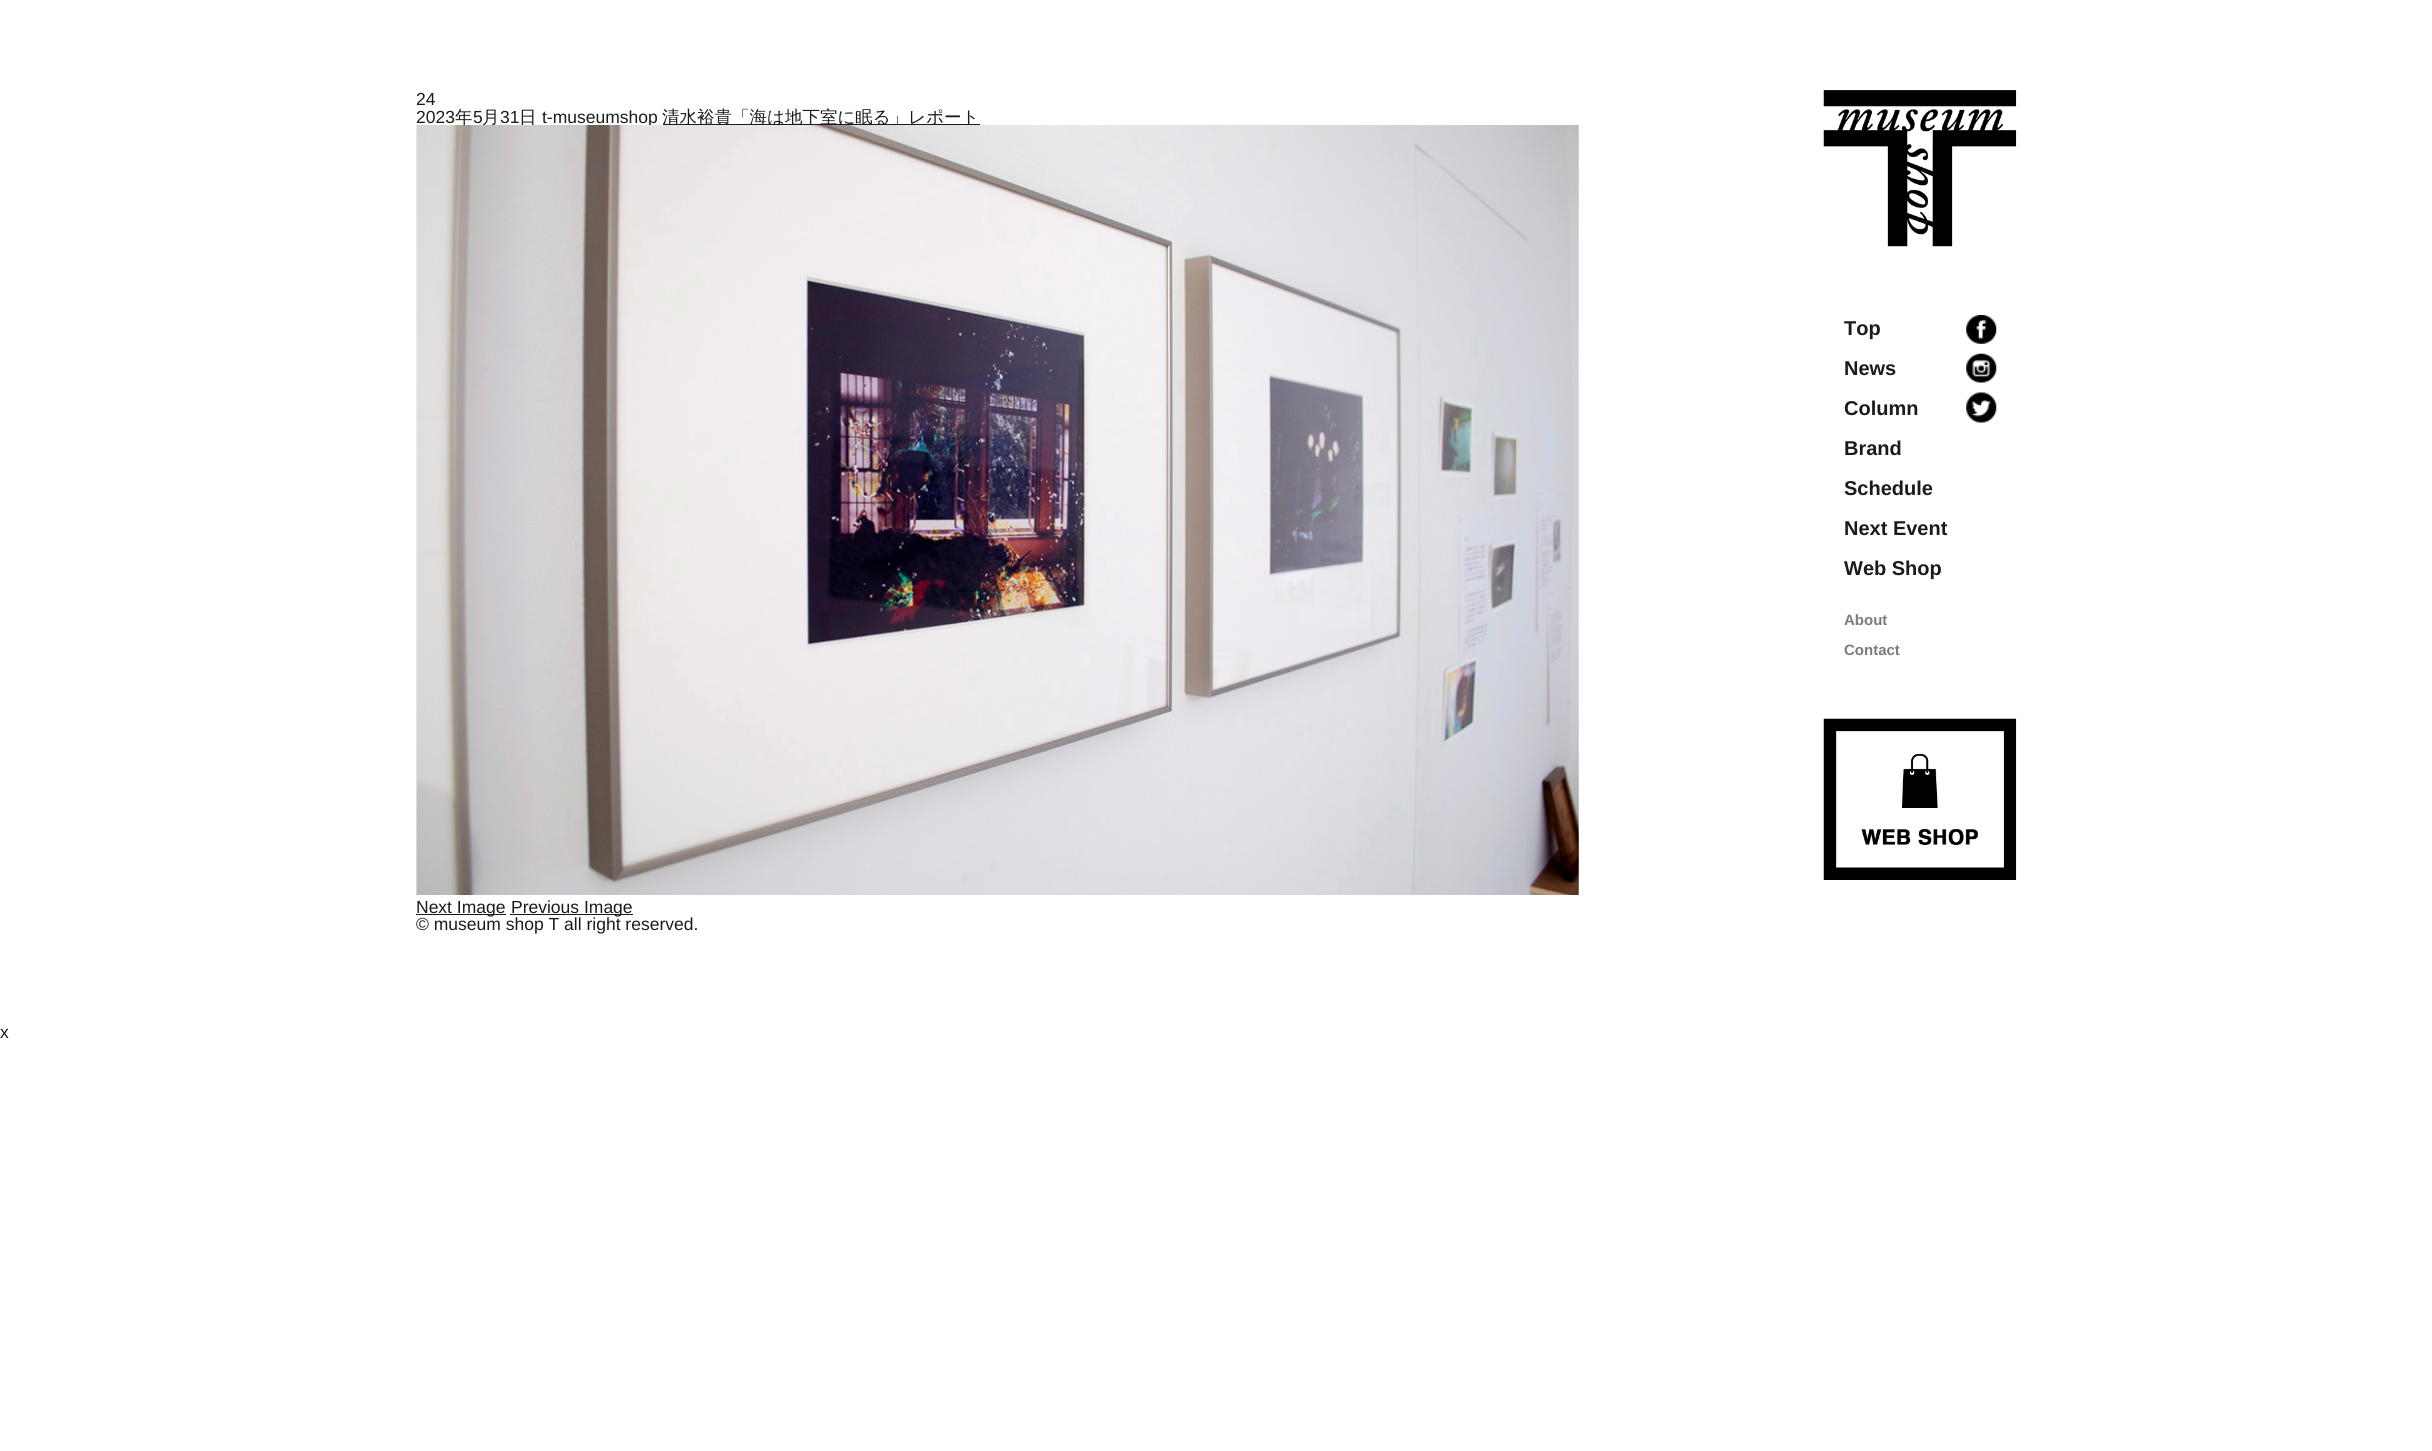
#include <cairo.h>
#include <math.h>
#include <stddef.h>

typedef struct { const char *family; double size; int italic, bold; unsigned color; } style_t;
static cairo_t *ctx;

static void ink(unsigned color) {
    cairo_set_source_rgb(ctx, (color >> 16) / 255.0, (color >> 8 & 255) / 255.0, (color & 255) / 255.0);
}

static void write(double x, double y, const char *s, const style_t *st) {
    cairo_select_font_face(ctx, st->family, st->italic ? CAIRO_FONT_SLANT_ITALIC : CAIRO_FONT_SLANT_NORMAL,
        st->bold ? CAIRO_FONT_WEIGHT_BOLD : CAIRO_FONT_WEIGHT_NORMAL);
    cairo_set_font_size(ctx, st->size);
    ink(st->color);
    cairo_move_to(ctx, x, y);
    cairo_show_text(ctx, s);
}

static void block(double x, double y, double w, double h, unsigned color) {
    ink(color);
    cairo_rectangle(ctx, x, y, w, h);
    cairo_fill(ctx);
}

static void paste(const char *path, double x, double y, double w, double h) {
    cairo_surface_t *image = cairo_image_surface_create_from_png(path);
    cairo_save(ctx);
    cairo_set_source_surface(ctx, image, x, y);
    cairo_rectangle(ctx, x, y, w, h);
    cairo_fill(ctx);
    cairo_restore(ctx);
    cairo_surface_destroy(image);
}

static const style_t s1 = {"Liberation Sans", 17.5, 0, 0, 0x1b1b1b};
static const style_t s2 = {"WenQuanYi Zen Hei Medium", 17.5, 0, 0, 0x1b1b1b};
static const style_t s3 = {"Liberation Sans", 20, 0, 1, 0x1b1b1b};
static const style_t s4 = {"Liberation Sans", 15, 0, 1, 0x7c7c7c};

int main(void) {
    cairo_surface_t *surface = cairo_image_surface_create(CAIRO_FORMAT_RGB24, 2432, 1451);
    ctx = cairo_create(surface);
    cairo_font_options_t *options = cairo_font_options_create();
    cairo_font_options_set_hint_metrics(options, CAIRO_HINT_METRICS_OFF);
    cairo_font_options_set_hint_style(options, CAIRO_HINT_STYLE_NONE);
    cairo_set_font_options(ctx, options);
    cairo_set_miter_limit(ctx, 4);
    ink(0xffffff);
    cairo_paint(ctx);
    write(416, 105, "24", &s1);
    write(416, 123, "2023", &s1);
    write(455, 123, "年", &s2);
    write(473, 123, "5", &s1);
    write(482, 123, "月", &s2);
    write(500, 123, "31", &s1);
    write(519, 123, "日", &s2);
    write(542, 123, "t-museumshop", &s1);
    block(663, 124, 317, 1, 0x1b1b1b);
    write(662, 123, "清水裕貴「海は地下室に眠る」レポート", &s2);
    paste("pic1.png", 416, 125, 1163, 770);
    block(416, 914, 90, 1, 0x1b1b1b);
    write(416, 913, "Next Image", &s1);
    block(510, 914, 123, 1, 0x1b1b1b);
    write(511, 913, "Previous Image", &s1);
    paste("pic2.png", 1823, 90, 194, 157);
    write(1844, 335, "Top", &s3);
    write(1844, 375, "News", &s3);
    write(1844, 415, "Column", &s3);
    write(1844, 455, "Brand", &s3);
    write(1844, 495, "Schedule", &s3);
    write(1844, 535, "Next Event", &s3);
    write(1844, 575, "Web Shop", &s3);
    write(1844, 625, "About", &s4);
    write(1844, 655, "Contact", &s4);
    paste("pic3.png", 1966, 315, 31, 29);
    paste("pic4.png", 1966, 353, 31, 30);
    paste("pic5.png", 1966, 392, 31, 31);
    paste("pic6.png", 1823, 718, 194, 162);
    write(416, 930, "© museum shop T all right reserved.", &s1);
    write(0, 1038, "x", &s1);
    cairo_surface_write_to_png(surface, "screenshot.png");
    cairo_font_options_destroy(options);
    cairo_destroy(ctx);
    cairo_surface_destroy(surface);
    return 0;
}
